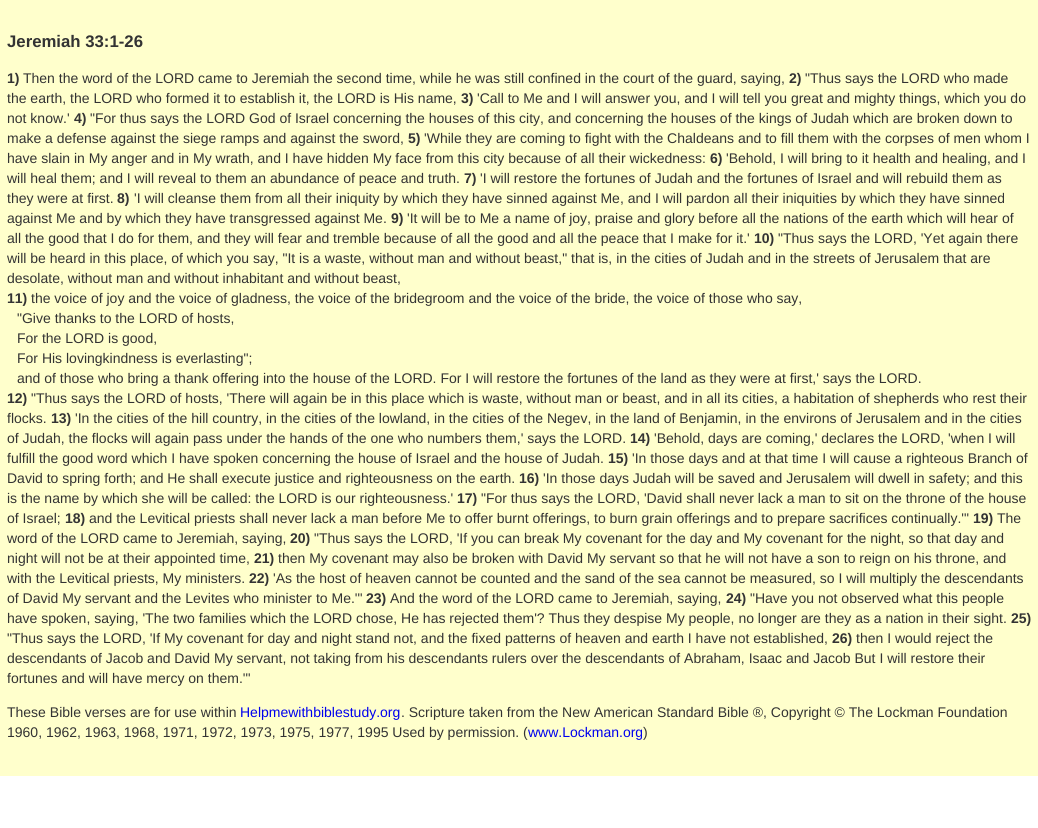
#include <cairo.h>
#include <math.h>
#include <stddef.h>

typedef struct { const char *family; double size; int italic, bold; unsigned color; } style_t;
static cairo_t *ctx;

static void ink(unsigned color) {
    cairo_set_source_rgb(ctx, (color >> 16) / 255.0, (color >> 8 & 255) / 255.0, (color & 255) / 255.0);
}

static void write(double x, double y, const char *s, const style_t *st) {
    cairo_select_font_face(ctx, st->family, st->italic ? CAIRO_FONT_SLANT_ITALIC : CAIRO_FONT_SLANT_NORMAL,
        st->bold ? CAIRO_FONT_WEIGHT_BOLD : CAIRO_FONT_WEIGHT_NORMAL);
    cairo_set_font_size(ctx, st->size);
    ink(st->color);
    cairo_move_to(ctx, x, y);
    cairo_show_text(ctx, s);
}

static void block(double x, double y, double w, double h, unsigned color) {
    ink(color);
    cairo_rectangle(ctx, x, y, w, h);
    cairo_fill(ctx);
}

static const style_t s1 = {"Liberation Sans", 16.75, 0, 1, 0x333333};
static const style_t s2 = {"Liberation Sans", 14, 0, 1, 0x333333};
static const style_t s3 = {"Liberation Sans", 14, 0, 0, 0x333333};
static const style_t s4 = {"Liberation Sans", 14, 0, 0, 0x0000ee};

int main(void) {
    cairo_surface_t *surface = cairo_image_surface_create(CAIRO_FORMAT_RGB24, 1038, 828);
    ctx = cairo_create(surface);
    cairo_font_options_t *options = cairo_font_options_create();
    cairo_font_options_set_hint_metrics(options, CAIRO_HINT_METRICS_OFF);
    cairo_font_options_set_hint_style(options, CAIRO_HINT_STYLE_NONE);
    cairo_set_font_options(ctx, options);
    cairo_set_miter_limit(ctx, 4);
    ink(0xffffff);
    cairo_paint(ctx);
    block(0, 0, 1038, 776, 0xffffcc);
    write(7, 47, "Jeremiah 33:1-26", &s1);
    write(7, 83, "1)", &s2);
    write(23, 83, "Then the word of the LORD came to Jeremiah the second time, while he was still confined in the court of the guard, saying,", &s3);
    write(789, 83, "2)", &s2);
    write(805, 83, "\"Thus says the LORD who made", &s3);
    write(7, 103, "the earth, the LORD who formed it to establish it, the LORD is His name,", &s3);
    write(461, 103, "3)", &s2);
    write(477, 103, "'Call to Me and I will answer you, and I will tell you great and mighty things, which you do", &s3);
    write(7, 123, "not know.'", &s3);
    write(74, 123, "4)", &s2);
    write(90, 123, "\"For thus says the LORD God of Israel concerning the houses of this city, and concerning the houses of the kings of Judah which are broken down to", &s3);
    write(7, 143, "make a defense against the siege ramps and against the sword,", &s3);
    write(408, 143, "5)", &s2);
    write(424, 143, "'While they are coming to fight with the Chaldeans and to fill them with the corpses of men whom I", &s3);
    write(7, 163, "have slain in My anger and in My wrath, and I have hidden My face from this city because of all their wickedness:", &s3);
    write(710, 163, "6)", &s2);
    write(726, 163, "'Behold, I will bring to it health and healing, and I", &s3);
    write(7, 183, "will heal them; and I will reveal to them an abundance of peace and truth.", &s3);
    write(464, 183, "7)", &s2);
    write(480, 183, "'I will restore the fortunes of Judah and the fortunes of Israel and will rebuild them as", &s3);
    write(7, 203, "they were at first.", &s3);
    write(117, 203, "8)", &s2);
    write(134, 203, "'I will cleanse them from all their iniquity by which they have sinned against Me, and I will pardon all their iniquities by which they have sinned", &s3);
    write(7, 223, "against Me and by which they have transgressed against Me.", &s3);
    write(391, 223, "9)", &s2);
    write(407, 223, "'It will be to Me a name of joy, praise and glory before all the nations of the earth which will hear of", &s3);
    write(7, 243, "all the good that I do for them, and they will fear and tremble because of all the good and all the peace that I make for it.'", &s3);
    write(754, 243, "10)", &s2);
    write(778, 243, "\"Thus says the LORD, 'Yet again there", &s3);
    write(7, 263, "will be heard in this place, of which you say, \"It is a waste, without man and without beast,\" that is, in the cities of Judah and in the streets of Jerusalem that are", &s3);
    write(7, 283, "desolate, without man and without inhabitant and without beast,", &s3);
    write(7, 303, "11)", &s2);
    write(31, 303, "the voice of joy and the voice of gladness, the voice of the bridegroom and the voice of the bride, the voice of those who say,", &s3);
    write(17, 323, "\"Give thanks to the LORD of hosts,", &s3);
    write(17, 343, "For the LORD is good,", &s3);
    write(17, 363, "For His lovingkindness is everlasting\";", &s3);
    write(17, 383, "and of those who bring a thank offering into the house of the LORD. For I will restore the fortunes of the land as they were at first,' says the LORD.", &s3);
    write(7, 403, "12)", &s2);
    write(31, 403, "\"Thus says the LORD of hosts, 'There will again be in this place which is waste, without man or beast, and in all its cities, a habitation of shepherds who rest their", &s3);
    write(7, 423, "flocks.", &s3);
    write(51, 423, "13)", &s2);
    write(75, 423, "'In the cities of the hill country, in the cities of the lowland, in the cities of the Negev, in the land of Benjamin, in the environs of Jerusalem and in the cities", &s3);
    write(7, 443, "of Judah, the flocks will again pass under the hands of the one who numbers them,' says the LORD.", &s3);
    write(630, 443, "14)", &s2);
    write(654, 443, "'Behold, days are coming,' declares the LORD, 'when I will", &s3);
    write(7, 463, "fulfill the good word which I have spoken concerning the house of Israel and the house of Judah.", &s3);
    write(608, 463, "15)", &s2);
    write(632, 463, "'In those days and at that time I will cause a righteous Branch of", &s3);
    write(7, 483, "David to spring forth; and He shall execute justice and righteousness on the earth.", &s3);
    write(519, 483, "16)", &s2);
    write(543, 483, "'In those days Judah will be saved and Jerusalem will dwell in safety; and this", &s3);
    write(7, 503, "is the name by which she will be called: the LORD is our righteousness.'", &s3);
    write(457, 503, "17)", &s2);
    write(481, 503, "\"For thus says the LORD, 'David shall never lack a man to sit on the throne of the house", &s3);
    write(7, 523, "of Israel;", &s3);
    write(65, 523, "18)", &s2);
    write(89, 523, "and the Levitical priests shall never lack a man before Me to offer burnt offerings, to burn grain offerings and to prepare sacrifices continually.'\"", &s3);
    write(973, 523, "19)", &s2);
    write(997, 523, "The", &s3);
    write(7, 543, "word of the LORD came to Jeremiah, saying,", &s3);
    write(290, 543, "20)", &s2);
    write(314, 543, "\"Thus says the LORD, 'If you can break My covenant for the day and My covenant for the night, so that day and", &s3);
    write(7, 563, "night will not be at their appointed time,", &s3);
    write(254, 563, "21)", &s2);
    write(278, 563, "then My covenant may also be broken with David My servant so that he will not have a son to reign on his throne, and", &s3);
    write(7, 583, "with the Levitical priests, My ministers.", &s3);
    write(249, 583, "22)", &s2);
    write(273, 583, "'As the host of heaven cannot be counted and the sand of the sea cannot be measured, so I will multiply the descendants", &s3);
    write(7, 603, "of David My servant and the Levites who minister to Me.'\"", &s3);
    write(366, 603, "23)", &s2);
    write(390, 603, "And the word of the LORD came to Jeremiah, saying,", &s3);
    write(726, 603, "24)", &s2);
    write(750, 603, "\"Have you not observed what this people", &s3);
    write(7, 623, "have spoken, saying, 'The two families which the LORD chose, He has rejected them'? Thus they despise My people, no longer are they as a nation in their sight.", &s3);
    write(1011, 623, "25)", &s2);
    write(7, 643, "\"Thus says the LORD, 'If My covenant for day and night stand not, and the fixed patterns of heaven and earth I have not established,", &s3);
    write(832, 643, "26)", &s2);
    write(856, 643, "then I would reject the", &s3);
    write(7, 663, "descendants of Jacob and David My servant, not taking from his descendants rulers over the descendants of Abraham, Isaac and Jacob But I will restore their", &s3);
    write(7, 683, "fortunes and will have mercy on them.'\"", &s3);
    write(7, 717, "These Bible verses are for use within", &s3);
    write(240, 717, "Helpmewithbiblestudy.org", &s4);
    write(401, 717, ". Scripture taken from the New American Standard Bible ®, Copyright © The Lockman Foundation", &s3);
    write(7, 737, "1960, 1962, 1963, 1968, 1971, 1972, 1973, 1975, 1977, 1995 Used by permission. (", &s3);
    write(528, 737, "www.Lockman.org", &s4);
    write(643, 737, ")", &s3);
    cairo_surface_write_to_png(surface, "screenshot.png");
    cairo_font_options_destroy(options);
    cairo_destroy(ctx);
    cairo_surface_destroy(surface);
    return 0;
}
